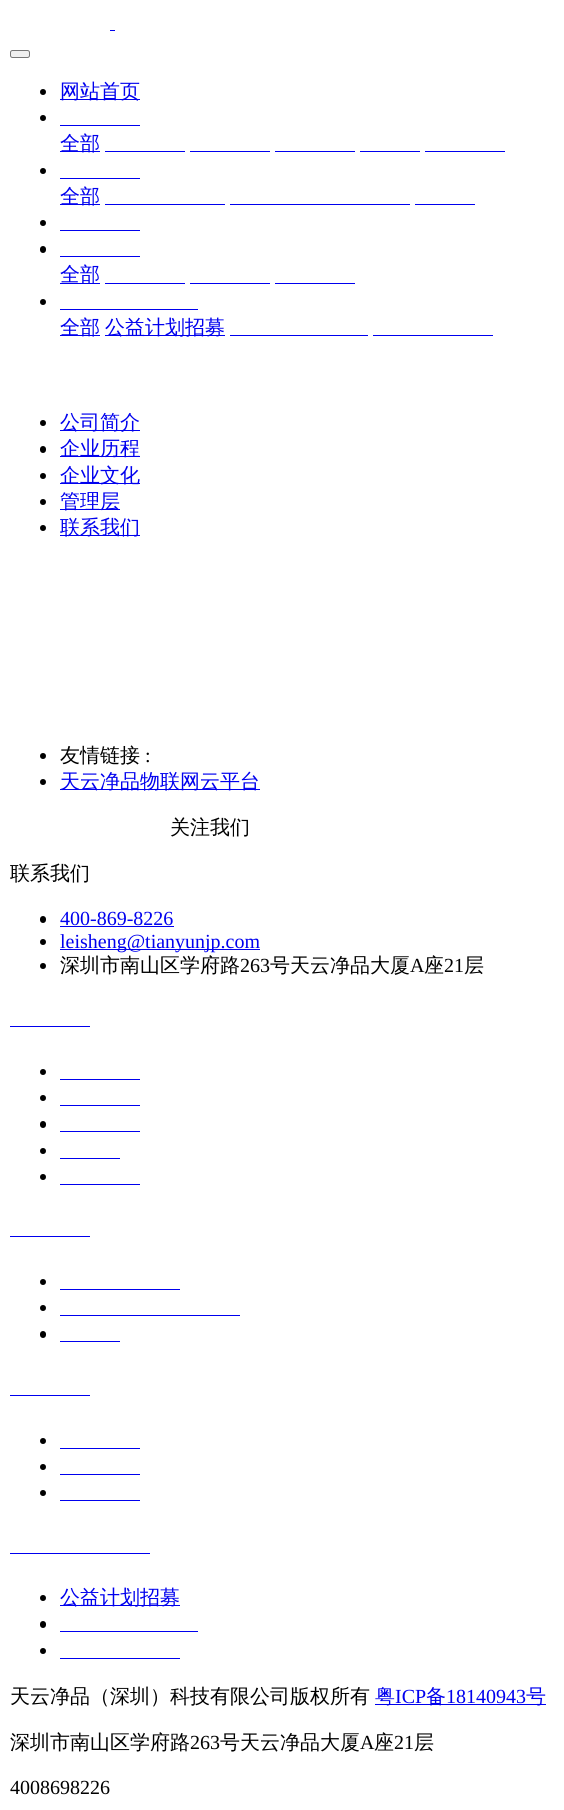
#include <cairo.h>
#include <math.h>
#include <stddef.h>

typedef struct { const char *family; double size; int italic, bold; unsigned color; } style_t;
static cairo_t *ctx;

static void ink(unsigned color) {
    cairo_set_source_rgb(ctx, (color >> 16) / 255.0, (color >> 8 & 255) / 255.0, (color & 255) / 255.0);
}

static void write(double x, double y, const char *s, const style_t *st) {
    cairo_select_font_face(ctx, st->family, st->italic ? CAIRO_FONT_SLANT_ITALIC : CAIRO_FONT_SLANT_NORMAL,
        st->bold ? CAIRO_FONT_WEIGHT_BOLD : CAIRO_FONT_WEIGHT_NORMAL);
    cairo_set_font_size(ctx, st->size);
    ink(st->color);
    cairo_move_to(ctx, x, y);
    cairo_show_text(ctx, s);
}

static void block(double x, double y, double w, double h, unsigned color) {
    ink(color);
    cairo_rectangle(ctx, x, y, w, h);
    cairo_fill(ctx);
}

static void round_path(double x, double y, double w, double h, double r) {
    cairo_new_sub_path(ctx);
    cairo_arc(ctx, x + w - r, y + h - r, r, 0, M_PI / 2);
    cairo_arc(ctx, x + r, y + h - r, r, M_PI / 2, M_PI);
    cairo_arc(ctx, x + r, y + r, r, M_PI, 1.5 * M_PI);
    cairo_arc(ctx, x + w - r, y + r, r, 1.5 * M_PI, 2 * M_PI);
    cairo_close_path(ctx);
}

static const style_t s1 = {"WenQuanYi Zen Hei Medium", 20, 0, 0, 0x0000ee};
static const style_t s2 = {"WenQuanYi Zen Hei Medium", 20, 0, 0, 0x000000};
static const style_t s3 = {"Liberation Serif", 20, 0, 0, 0x000000};
static const style_t s4 = {"Liberation Serif", 20, 0, 0, 0x0000ee};

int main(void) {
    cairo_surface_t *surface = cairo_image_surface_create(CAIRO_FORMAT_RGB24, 564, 1810);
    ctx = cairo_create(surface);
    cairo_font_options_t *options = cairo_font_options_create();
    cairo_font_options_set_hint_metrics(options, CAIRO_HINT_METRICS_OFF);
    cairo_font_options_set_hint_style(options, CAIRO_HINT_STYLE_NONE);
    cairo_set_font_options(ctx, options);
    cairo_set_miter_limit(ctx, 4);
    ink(0xffffff);
    cairo_paint(ctx);
    block(110, 30, 5, 1, 0x0000ee);
    ink(0xefefef);
    round_path(10.5, 50.5, 19, 7, 2);
    cairo_fill_preserve(ctx);
    ink(0x767676);
    cairo_set_line_width(ctx, 1);
    cairo_stroke(ctx);
    ink(0x000000);
    cairo_arc(ctx, 43, 92, 3, 0, 2 * M_PI);
    cairo_fill(ctx);
    block(60, 99, 80, 1, 0x0000ee);
    write(60, 98, "网站首页", &s1);
    ink(0x000000);
    cairo_new_path(ctx);
    cairo_arc(ctx, 43, 118, 3, 0, 2 * M_PI);
    cairo_fill(ctx);
    block(60, 125, 80, 1, 0x0000ee);
    block(60, 151, 40, 1, 0x0000ee);
    write(60, 150, "全部", &s1);
    block(105, 151, 80, 1, 0x0000ee);
    block(190, 151, 80, 1, 0x0000ee);
    block(275, 151, 80, 1, 0x0000ee);
    block(360, 151, 60, 1, 0x0000ee);
    block(425, 151, 80, 1, 0x0000ee);
    ink(0x000000);
    cairo_new_path(ctx);
    cairo_arc(ctx, 43, 171, 3, 0, 2 * M_PI);
    cairo_fill(ctx);
    block(60, 178, 80, 1, 0x0000ee);
    block(60, 204, 40, 1, 0x0000ee);
    write(60, 203, "全部", &s1);
    block(105, 204, 120, 1, 0x0000ee);
    block(230, 204, 180, 1, 0x0000ee);
    block(415, 204, 60, 1, 0x0000ee);
    ink(0x000000);
    cairo_new_path(ctx);
    cairo_arc(ctx, 43, 223, 3, 0, 2 * M_PI);
    cairo_fill(ctx);
    block(60, 230, 80, 1, 0x0000ee);
    ink(0x000000);
    round_path(40, 246, 6, 7, 3);
    cairo_fill(ctx);
    block(60, 256, 80, 1, 0x0000ee);
    block(60, 283, 40, 1, 0x0000ee);
    write(60, 281, "全部", &s1);
    block(105, 283, 80, 1, 0x0000ee);
    block(190, 283, 80, 1, 0x0000ee);
    block(275, 283, 80, 1, 0x0000ee);
    ink(0x000000);
    cairo_new_path(ctx);
    cairo_arc(ctx, 43, 302, 3, 0, 2 * M_PI);
    cairo_fill(ctx);
    block(60, 309, 138, 1, 0x0000ee);
    block(60, 335, 40, 1, 0x0000ee);
    write(60, 334, "全部", &s1);
    block(105, 335, 120, 1, 0x0000ee);
    write(105, 334, "公益计划招募", &s1);
    block(230, 335, 138, 1, 0x0000ee);
    block(373, 335, 120, 1, 0x0000ee);
    ink(0x000000);
    cairo_new_path(ctx);
    cairo_arc(ctx, 43, 423, 3, 0, 2 * M_PI);
    cairo_fill(ctx);
    block(60, 430, 80, 1, 0x0000ee);
    write(60, 429, "公司简介", &s1);
    ink(0x000000);
    round_path(40, 446, 6, 7, 3);
    cairo_fill(ctx);
    block(60, 456, 80, 1, 0x0000ee);
    write(60, 455, "企业历程", &s1);
    ink(0x000000);
    cairo_new_path(ctx);
    cairo_arc(ctx, 43, 476, 3, 0, 2 * M_PI);
    cairo_fill(ctx);
    block(60, 483, 80, 1, 0x0000ee);
    write(60, 482, "企业文化", &s1);
    ink(0x000000);
    cairo_new_path(ctx);
    cairo_arc(ctx, 43, 502, 3, 0, 2 * M_PI);
    cairo_fill(ctx);
    block(60, 509, 60, 1, 0x0000ee);
    write(60, 508, "管理层", &s1);
    ink(0x000000);
    cairo_new_path(ctx);
    cairo_arc(ctx, 43, 528, 3, 0, 2 * M_PI);
    cairo_fill(ctx);
    block(60, 535, 80, 1, 0x0000ee);
    write(60, 534, "联系我们", &s1);
    ink(0x000000);
    cairo_new_path(ctx);
    cairo_arc(ctx, 43, 756, 3, 0, 2 * M_PI);
    cairo_fill(ctx);
    write(60, 762, "友情链接", &s2);
    write(145, 762, ":", &s3);
    cairo_new_path(ctx);
    cairo_arc(ctx, 43, 782, 3, 0, 2 * M_PI);
    cairo_fill(ctx);
    block(60, 789, 200, 1, 0x0000ee);
    write(60, 788, "天云净品物联网云平台", &s1);
    write(170, 834, "关注我们", &s2);
    write(10, 880, "联系我们", &s2);
    round_path(40, 916, 6, 7, 3);
    cairo_fill(ctx);
    write(60, 925, "400-869-8226", &s4);
    block(60, 926, 114, 1, 0x0000ee);
    ink(0x000000);
    cairo_new_path(ctx);
    cairo_arc(ctx, 43, 942, 3, 0, 2 * M_PI);
    cairo_fill(ctx);
    block(60, 949, 200, 1, 0x0000ee);
    write(60, 948, "leisheng@tianyunjp.com", &s4);
    ink(0x000000);
    cairo_new_path(ctx);
    cairo_arc(ctx, 43, 966, 3, 0, 2 * M_PI);
    cairo_fill(ctx);
    write(60, 972, "深圳市南山区学府路", &s2);
    write(240, 972, "263", &s3);
    write(270, 972, "号天云净品大厦", &s2);
    write(410, 972, "A", &s3);
    write(424, 972, "座", &s2);
    write(444, 972, "21", &s3);
    write(464, 972, "层", &s2);
    block(10, 1026, 80, 1, 0x0000ee);
    ink(0x000000);
    cairo_new_path(ctx);
    cairo_arc(ctx, 43, 1072, 3, 0, 2 * M_PI);
    cairo_fill(ctx);
    block(60, 1079, 80, 1, 0x0000ee);
    ink(0x000000);
    cairo_arc(ctx, 43, 1098, 3, 0, 2 * M_PI);
    cairo_fill(ctx);
    block(60, 1105, 80, 1, 0x0000ee);
    ink(0x000000);
    round_path(40, 1121, 6, 7, 3);
    cairo_fill(ctx);
    block(60, 1131, 80, 1, 0x0000ee);
    ink(0x000000);
    cairo_arc(ctx, 43, 1151, 3, 0, 2 * M_PI);
    cairo_fill(ctx);
    block(60, 1158, 60, 1, 0x0000ee);
    ink(0x000000);
    cairo_arc(ctx, 43, 1177, 3, 0, 2 * M_PI);
    cairo_fill(ctx);
    block(60, 1184, 80, 1, 0x0000ee);
    block(10, 1236, 80, 1, 0x0000ee);
    ink(0x000000);
    cairo_arc(ctx, 43, 1282, 3, 0, 2 * M_PI);
    cairo_fill(ctx);
    block(60, 1289, 120, 1, 0x0000ee);
    ink(0x000000);
    cairo_arc(ctx, 43, 1308, 3, 0, 2 * M_PI);
    cairo_fill(ctx);
    block(60, 1315, 180, 1, 0x0000ee);
    ink(0x000000);
    round_path(40, 1331, 6, 7, 3);
    cairo_fill(ctx);
    block(60, 1341, 60, 1, 0x0000ee);
    block(10, 1395, 80, 1, 0x0000ee);
    ink(0x000000);
    cairo_arc(ctx, 43, 1441, 3, 0, 2 * M_PI);
    cairo_fill(ctx);
    block(60, 1448, 80, 1, 0x0000ee);
    ink(0x000000);
    cairo_arc(ctx, 43, 1467, 3, 0, 2 * M_PI);
    cairo_fill(ctx);
    block(60, 1474, 80, 1, 0x0000ee);
    ink(0x000000);
    cairo_arc(ctx, 43, 1493, 3, 0, 2 * M_PI);
    cairo_fill(ctx);
    block(60, 1500, 80, 1, 0x0000ee);
    block(10, 1553, 140, 1, 0x0000ee);
    ink(0x000000);
    cairo_arc(ctx, 43, 1598, 3, 0, 2 * M_PI);
    cairo_fill(ctx);
    block(60, 1605, 120, 1, 0x0000ee);
    write(60, 1604, "公益计划招募", &s1);
    ink(0x000000);
    round_path(40, 1621, 6, 7, 3);
    cairo_fill(ctx);
    block(60, 1631, 138, 1, 0x0000ee);
    ink(0x000000);
    cairo_arc(ctx, 43, 1651, 3, 0, 2 * M_PI);
    cairo_fill(ctx);
    block(60, 1658, 120, 1, 0x0000ee);
    write(10, 1703, "天云净品（深圳）科技有限公司版权所有", &s2);
    block(375, 1704, 171, 1, 0x0000ee);
    write(375, 1703, "粤", &s1);
    write(395, 1703, "ICP", &s4);
    write(426, 1703, "备", &s1);
    write(446, 1703, "18140943", &s4);
    write(526, 1703, "号", &s1);
    write(10, 1749, "深圳市南山区学府路", &s2);
    write(190, 1749, "263", &s3);
    write(220, 1749, "号天云净品大厦", &s2);
    write(360, 1749, "A", &s3);
    write(374, 1749, "座", &s2);
    write(394, 1749, "21", &s3);
    write(414, 1749, "层", &s2);
    write(10, 1794, "4008698226", &s3);
    cairo_surface_write_to_png(surface, "screenshot.png");
    cairo_font_options_destroy(options);
    cairo_destroy(ctx);
    cairo_surface_destroy(surface);
    return 0;
}
